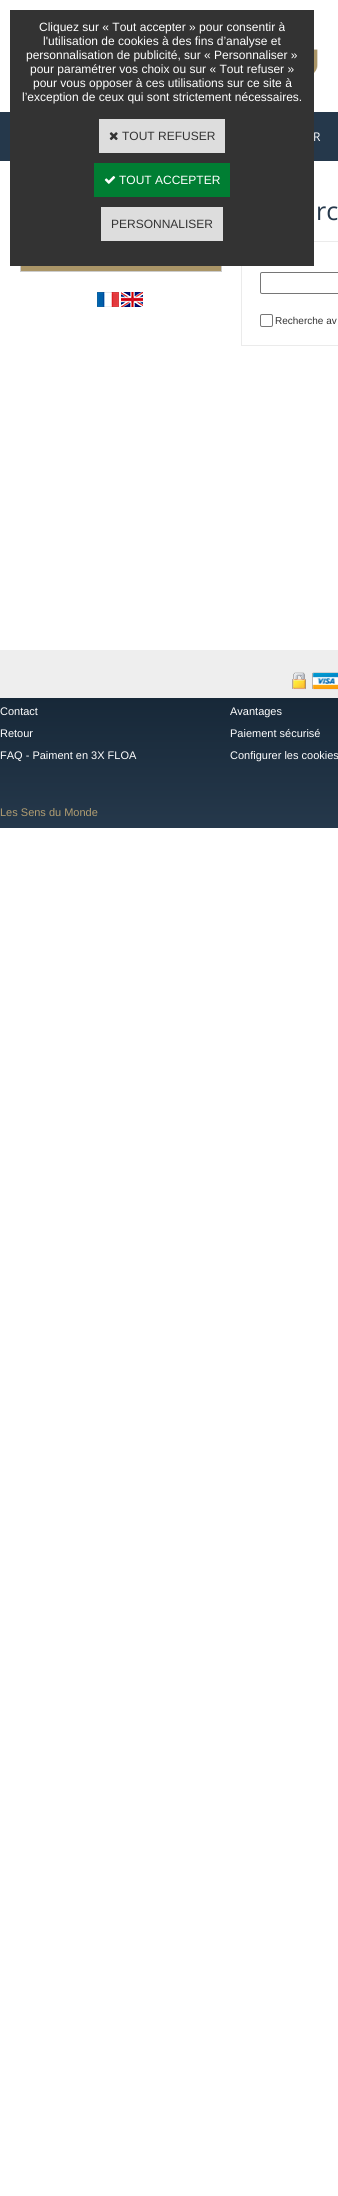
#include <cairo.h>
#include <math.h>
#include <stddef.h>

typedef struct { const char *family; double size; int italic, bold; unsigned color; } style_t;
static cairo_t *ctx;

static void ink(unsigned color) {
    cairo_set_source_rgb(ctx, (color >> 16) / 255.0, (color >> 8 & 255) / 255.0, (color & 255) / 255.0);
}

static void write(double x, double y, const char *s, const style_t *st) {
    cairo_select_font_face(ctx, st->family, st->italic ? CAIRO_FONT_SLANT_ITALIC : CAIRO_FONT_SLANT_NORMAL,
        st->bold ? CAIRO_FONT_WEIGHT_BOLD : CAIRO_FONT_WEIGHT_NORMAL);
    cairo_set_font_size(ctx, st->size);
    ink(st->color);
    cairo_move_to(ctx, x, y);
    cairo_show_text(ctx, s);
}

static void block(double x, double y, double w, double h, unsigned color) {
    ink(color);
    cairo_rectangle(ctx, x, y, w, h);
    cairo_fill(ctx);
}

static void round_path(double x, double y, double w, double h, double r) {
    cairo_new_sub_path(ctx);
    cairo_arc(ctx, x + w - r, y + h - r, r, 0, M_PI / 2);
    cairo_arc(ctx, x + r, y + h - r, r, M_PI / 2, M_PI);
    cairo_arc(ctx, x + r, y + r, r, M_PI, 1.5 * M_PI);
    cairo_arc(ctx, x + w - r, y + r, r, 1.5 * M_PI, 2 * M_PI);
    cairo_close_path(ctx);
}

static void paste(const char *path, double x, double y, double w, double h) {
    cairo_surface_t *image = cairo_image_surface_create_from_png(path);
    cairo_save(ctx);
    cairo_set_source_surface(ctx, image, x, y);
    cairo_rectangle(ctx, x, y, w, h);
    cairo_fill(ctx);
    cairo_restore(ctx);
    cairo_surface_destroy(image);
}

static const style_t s1 = {"Liberation Sans", 12, 0, 0, 0xffffff};
static const style_t s2 = {"Liberation Sans", 12, 0, 0, 0x333333};
static const style_t s3 = {"Open Sans", 12, 0, 0, 0xffffff};
static const style_t s4 = {"Open Sans", 25, 0, 0, 0x25384b};
static const style_t s5 = {"Liberation Sans", 10, 0, 0, 0x333333};
static const style_t s6 = {"Liberation Sans", 11, 0, 0, 0xffffff};
static const style_t s7 = {"Liberation Sans", 11, 0, 0, 0xb19d71};

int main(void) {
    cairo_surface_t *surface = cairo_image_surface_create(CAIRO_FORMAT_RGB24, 338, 2196);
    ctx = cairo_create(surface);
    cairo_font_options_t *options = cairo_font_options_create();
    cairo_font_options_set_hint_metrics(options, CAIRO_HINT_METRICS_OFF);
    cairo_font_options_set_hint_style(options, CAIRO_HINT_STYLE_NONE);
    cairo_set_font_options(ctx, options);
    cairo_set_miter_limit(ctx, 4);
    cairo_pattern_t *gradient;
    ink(0xffffff);
    cairo_paint(ctx);
    block(0, 112, 338, 49, 0x25384b);
    cairo_rectangle(ctx, 20.5, 180.5, 201, 91);
    ink(0xcccccc);
    cairo_set_line_width(ctx, 1);
    cairo_stroke(ctx);
    cairo_rectangle(ctx, 241.5, 241.5, 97, 104);
    ink(0xebebeb);
    cairo_stroke(ctx);
    block(10, 10, 304, 256, 0x333333);
    write(39, 31, "Cliquez sur « Tout accepter » pour consentir à", &s1);
    write(43, 45, "l'utilisation de cookies à des fins d’analyse et", &s1);
    write(26, 59, "personnalisation de publicité, sur « Personnaliser »", &s1);
    write(30, 73, "pour paramétrer vos choix ou sur « Tout refuser »", &s1);
    write(33, 87, "pour vous opposer à ces utilisations sur ce site à", &s1);
    write(22, 101, "l’exception de ceux qui sont strictement nécessaires.", &s1);
    block(99, 119, 126, 34, 0xdddddd);
    paste("pic1.png", 109, 132, 9, 9);
    write(122, 140, "TOUT REFUSER", &s2);
    block(94, 163, 136, 34, 0x007e33);
    paste("pic2.png", 104, 176, 12, 8);
    write(119, 184, "TOUT ACCEPTER", &s1);
    block(101, 207, 122, 34, 0xdddddd);
    write(111, 228, "PERSONNALISER", &s2);
    paste("pic3.png", 314, 49, 4, 24);
    write(313, 141, "R", &s3);
    block(21, 266, 200, 5, 0xaa9567);
    paste("pic4.png", 97, 292, 22, 15);
    paste("pic5.png", 121, 292, 22, 15);
    write(316, 220, "rc", &s4);
    round_path(260.5, 272.5, 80, 21, 1.5);
    ink(0x767676);
    cairo_stroke(ctx);
    round_path(260.5, 314.5, 12, 12, 1.5);
    cairo_stroke(ctx);
    write(275, 324, "Recherche av", &s5);
    gradient = cairo_pattern_create_linear(169, 828, 169, 650);
    cairo_pattern_add_color_stop_rgba(gradient, 0, 0.145, 0.22, 0.294, 1);
    cairo_pattern_add_color_stop_rgba(gradient, 0.73, 0.09, 0.157, 0.22, 1);
    cairo_pattern_add_color_stop_rgba(gradient, 0.73, 0.933, 0.933, 0.933, 1);
    cairo_pattern_add_color_stop_rgba(gradient, 1, 0.933, 0.933, 0.933, 1);
    cairo_set_source(ctx, gradient);
    cairo_pattern_destroy(gradient);
    cairo_rectangle(ctx, 0, 650, 338, 178);
    cairo_fill(ctx);
    paste("pic6.png", 292, 672, 46, 18);
    write(0, 715, "Contact", &s6);
    write(230, 715, "Avantages", &s6);
    write(0, 737, "Retour", &s6);
    write(230, 737, "Paiement sécurisé", &s6);
    write(0, 759, "FAQ - Paiment en 3X FLOA", &s6);
    write(230, 759, "Configurer les cookies", &s6);
    write(0, 816, "Les Sens du Monde", &s7);
    cairo_surface_write_to_png(surface, "screenshot.png");
    cairo_font_options_destroy(options);
    cairo_destroy(ctx);
    cairo_surface_destroy(surface);
    return 0;
}
